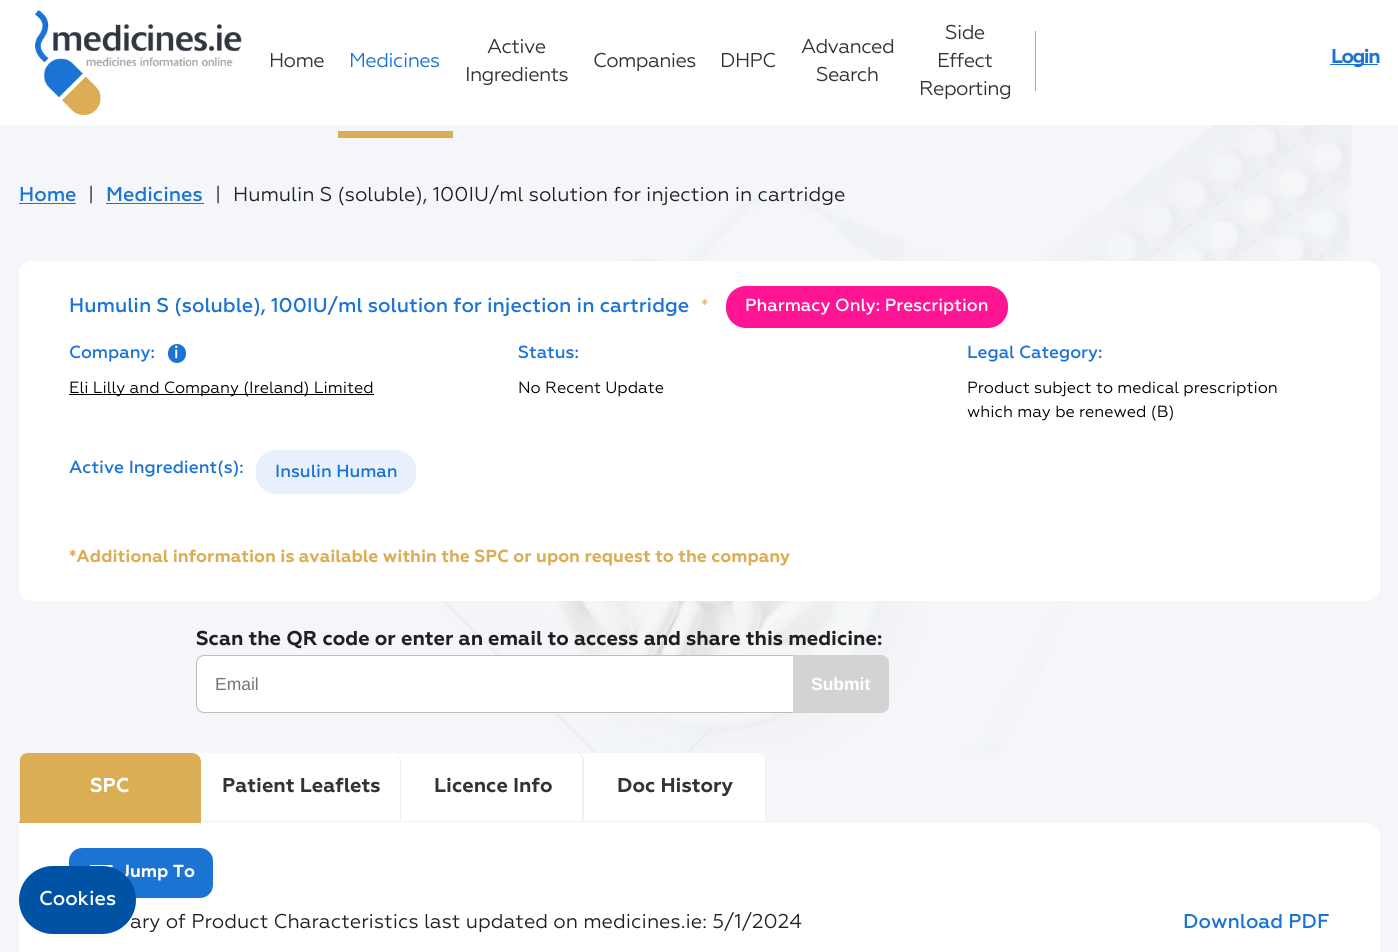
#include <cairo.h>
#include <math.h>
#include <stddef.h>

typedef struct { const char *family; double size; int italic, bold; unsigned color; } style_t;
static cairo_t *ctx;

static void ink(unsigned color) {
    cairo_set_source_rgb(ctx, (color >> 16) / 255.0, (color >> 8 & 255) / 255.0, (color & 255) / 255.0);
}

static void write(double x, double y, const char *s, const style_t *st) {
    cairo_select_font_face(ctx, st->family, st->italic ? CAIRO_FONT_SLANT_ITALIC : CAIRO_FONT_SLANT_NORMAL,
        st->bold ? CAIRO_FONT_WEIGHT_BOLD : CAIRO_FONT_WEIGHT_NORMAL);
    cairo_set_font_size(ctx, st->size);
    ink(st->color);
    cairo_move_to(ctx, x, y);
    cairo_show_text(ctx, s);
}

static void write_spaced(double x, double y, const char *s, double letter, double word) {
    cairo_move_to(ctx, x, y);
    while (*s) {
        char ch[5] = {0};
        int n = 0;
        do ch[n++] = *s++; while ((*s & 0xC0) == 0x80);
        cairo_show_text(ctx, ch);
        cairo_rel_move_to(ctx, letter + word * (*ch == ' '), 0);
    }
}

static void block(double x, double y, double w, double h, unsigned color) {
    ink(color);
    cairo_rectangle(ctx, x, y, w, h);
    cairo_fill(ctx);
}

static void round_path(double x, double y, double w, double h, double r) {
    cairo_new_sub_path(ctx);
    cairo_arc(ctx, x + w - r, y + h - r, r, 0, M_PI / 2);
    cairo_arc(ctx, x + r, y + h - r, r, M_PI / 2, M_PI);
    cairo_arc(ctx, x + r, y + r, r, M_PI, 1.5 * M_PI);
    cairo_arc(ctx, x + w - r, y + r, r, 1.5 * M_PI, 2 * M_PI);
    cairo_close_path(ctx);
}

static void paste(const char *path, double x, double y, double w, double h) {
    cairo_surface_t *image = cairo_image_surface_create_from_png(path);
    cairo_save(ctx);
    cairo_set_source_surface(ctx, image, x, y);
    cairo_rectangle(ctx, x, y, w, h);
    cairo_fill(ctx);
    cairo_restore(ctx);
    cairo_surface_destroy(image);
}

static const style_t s1 = {"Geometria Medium", 20, 0, 0, 0x1b73d4};
static const style_t s2 = {"Geometria", 20, 0, 0, 0x1f2020};
static const style_t s3 = {"Geometria", 17.5, 0, 0, 0xdbad55};
static const style_t s4 = {"Geometria Medium", 17.5, 0, 0, 0xffffff};
static const style_t s5 = {"Geometria Medium", 17.5, 0, 0, 0x1b73d4};
static const style_t s6 = {"Geometria", 16.25, 0, 0, 0x000000};
static const style_t s7 = {"Geometria", 17.5, 0, 1, 0xdbad55};
static const style_t s8 = {"Geometria", 20, 0, 1, 0x1f2020};
static const style_t s9 = {"Liberation Sans", 17.5, 0, 0, 0x757575};
static const style_t s10 = {"Liberation Sans", 17.5, 0, 1, 0xffffff};
static const style_t s11 = {"Geometria", 20, 0, 1, 0xffffff};
static const style_t s12 = {"Geometria", 20, 0, 1, 0x333333};
static const style_t s13 = {"Geometria", 17.5, 0, 1, 0xffffff};
static const style_t s14 = {"Geometria Medium", 20, 0, 0, 0xffffff};

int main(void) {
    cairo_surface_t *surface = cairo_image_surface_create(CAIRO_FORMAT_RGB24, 1398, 952);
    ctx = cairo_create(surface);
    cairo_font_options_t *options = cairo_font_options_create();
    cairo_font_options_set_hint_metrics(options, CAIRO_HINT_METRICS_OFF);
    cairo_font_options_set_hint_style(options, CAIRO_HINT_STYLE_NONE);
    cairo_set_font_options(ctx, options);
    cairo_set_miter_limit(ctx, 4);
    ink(0xf4f6f9);
    cairo_paint(ctx);
    paste("pic1.png", 443, 125, 909, 628);
    block(0, 0, 1398, 125, 0xffffff);
    paste("pic2.png", 35, 10, 207, 105);
    cairo_select_font_face(ctx, "Geometria", CAIRO_FONT_SLANT_NORMAL, CAIRO_FONT_WEIGHT_NORMAL);
    cairo_set_font_size(ctx, 20);
    ink(0x333333);
    write_spaced(269, 67, "Home", -0.6, 0);
    ink(0x1b73d4);
    write_spaced(349, 67, "Medicines", -0.6, 0);
    block(338, 131, 115, 7, 0xdbad55);
    ink(0x333333);
    write_spaced(487, 53, "Active", -0.6, 0);
    write_spaced(465, 81, "Ingredients", -0.6, 0);
    write_spaced(593, 67, "Companies", -0.6, 0);
    write_spaced(720, 67, "DHPC", -0.6, 0);
    write_spaced(801, 53, "Advanced", -0.6, 0);
    write_spaced(816, 81, "Search", -0.6, 0);
    write_spaced(945, 39, "Side", -0.6, 0);
    write_spaced(937, 67, "Effect", -0.6, 0);
    write_spaced(919, 95, "Reporting", -0.6, 0);
    block(1035, 31, 1, 60, 0xa5a9ac);
    block(1330, 64, 48, 1, 0x1b73d4);
    cairo_select_font_face(ctx, "Geometria", CAIRO_FONT_SLANT_NORMAL, CAIRO_FONT_WEIGHT_BOLD);
    write_spaced(1331, 63, "Login", -1.5, 0);
    write(19, 201, "Home", &s1);
    block(19, 203, 57, 1, 0x1b73d4);
    write(88, 201, "|", &s2);
    write(106, 201, "Medicines", &s1);
    block(106, 203, 98, 1, 0x1b73d4);
    write(215, 201, "|", &s2);
    write(233, 201, "Humulin S (soluble), 100IU/ml solution for injection in cartridge", &s2);
    ink(0xffffff);
    round_path(19, 261, 1361, 340, 13);
    cairo_fill(ctx);
    write(69, 312, "Humulin S (soluble), 100IU/ml solution for injection in cartridge", &s1);
    write(701, 311, "*", &s3);
    ink(0xff1493);
    round_path(726, 286, 282, 42, 20);
    cairo_fill(ctx);
    write(745, 311, "Pharmacy Only: Prescription", &s4);
    write(69, 358, "Company:", &s5);
    round_path(168, 344, 18, 19, 9);
    cairo_fill(ctx);
    paste("pic3.png", 175, 345, 3, 14);
    block(69, 394, 305, 1, 0x000000);
    write(69, 393, "Eli Lilly and Company (Ireland) Limited", &s6);
    write(518, 358, "Status:", &s5);
    write(518, 393, "No Recent Update", &s6);
    write(967, 358, "Legal Category:", &s5);
    write(967, 393, "Product subject to medical prescription", &s6);
    write(967, 417, "which may be renewed (B)", &s6);
    write(69, 473, "Active Ingredient(s):", &s5);
    ink(0xe8f1fb);
    round_path(256, 450, 160, 44, 20);
    cairo_fill(ctx);
    write(275, 477, "Insulin Human", &s5);
    write(69, 562, "*Additional information is available within the SPC or upon request to the company", &s7);
    write(196, 645, "Scan the QR code or enter an email to access and share this medicine:", &s8);
    ink(0xffffff);
    cairo_new_path(ctx);
    cairo_move_to(ctx, 204, 655.5);
    cairo_line_to(ctx, 795.5, 655.5);
    cairo_line_to(ctx, 795.5, 712.5);
    cairo_line_to(ctx, 204, 712.5);
    cairo_curve_to(ctx, 200, 712.5, 196.5, 709, 196.5, 705);
    cairo_line_to(ctx, 196.5, 663);
    cairo_curve_to(ctx, 196.5, 659, 200, 655.5, 204, 655.5);
    cairo_close_path(ctx);
    cairo_fill_preserve(ctx);
    ink(0xbdbdbd);
    cairo_set_line_width(ctx, 1);
    cairo_stroke(ctx);
    write(215, 690, "Email", &s9);
    ink(0xd3d3d3);
    cairo_new_path(ctx);
    cairo_move_to(ctx, 793, 655);
    cairo_line_to(ctx, 881, 655);
    cairo_curve_to(ctx, 885.5, 655, 889, 658.5, 889, 663);
    cairo_line_to(ctx, 889, 705);
    cairo_curve_to(ctx, 889, 709.5, 885.5, 713, 881, 713);
    cairo_line_to(ctx, 793, 713);
    cairo_close_path(ctx);
    cairo_fill(ctx);
    write(811, 690, "Submit", &s10);
    cairo_new_path(ctx);
    cairo_move_to(ctx, 28, 753);
    cairo_line_to(ctx, 757, 753);
    cairo_curve_to(ctx, 762, 753, 766, 757, 766, 762);
    cairo_line_to(ctx, 766, 823);
    cairo_line_to(ctx, 19, 823);
    cairo_line_to(ctx, 19, 762);
    cairo_curve_to(ctx, 19, 757, 23, 753, 28, 753);
    cairo_close_path(ctx);
    cairo_fill(ctx);
    ink(0xdbad55);
    cairo_new_path(ctx);
    cairo_move_to(ctx, 28, 753);
    cairo_line_to(ctx, 192, 753);
    cairo_curve_to(ctx, 197, 753, 201, 757, 201, 762);
    cairo_line_to(ctx, 201, 823);
    cairo_line_to(ctx, 19, 823);
    cairo_line_to(ctx, 19, 762);
    cairo_curve_to(ctx, 19, 757, 23, 753, 28, 753);
    cairo_close_path(ctx);
    cairo_fill(ctx);
    ink(0xedf1f7);
    cairo_new_path(ctx);
    cairo_move_to(ctx, 25, 752);
    cairo_curve_to(ctx, 22, 754, 20, 757, 20, 761);
    cairo_line_to(ctx, 20, 821);
    cairo_line_to(ctx, 19, 822);
    cairo_line_to(ctx, 19, 761);
    cairo_curve_to(ctx, 19, 757, 21, 754, 25, 752);
    cairo_close_path(ctx);
    cairo_fill(ctx);
    write(90, 792, "SPC", &s11);
    ink(0xedf1f7);
    cairo_new_path(ctx);
    cairo_move_to(ctx, 400, 821);
    cairo_line_to(ctx, 400, 761);
    cairo_curve_to(ctx, 400, 757, 398, 754, 395, 752);
    cairo_curve_to(ctx, 399, 754, 401, 757, 401, 761);
    cairo_line_to(ctx, 401, 822);
    cairo_close_path(ctx);
    cairo_fill(ctx);
    cairo_new_path(ctx);
    cairo_move_to(ctx, 401, 822);
    cairo_line_to(ctx, 202, 822);
    cairo_line_to(ctx, 203, 821);
    cairo_line_to(ctx, 400, 821);
    cairo_close_path(ctx);
    cairo_fill(ctx);
    write(222, 792, "Patient Leaflets", &s12);
    ink(0xedf1f7);
    cairo_new_path(ctx);
    cairo_move_to(ctx, 582, 821);
    cairo_line_to(ctx, 582, 761);
    cairo_curve_to(ctx, 582, 757, 580, 754, 577, 752);
    cairo_line_to(ctx, 578, 752);
    cairo_curve_to(ctx, 581, 753, 583, 756, 584, 759);
    cairo_line_to(ctx, 584, 822);
    cairo_close_path(ctx);
    cairo_fill(ctx);
    cairo_new_path(ctx);
    cairo_move_to(ctx, 403, 821);
    cairo_line_to(ctx, 582, 821);
    cairo_line_to(ctx, 583, 822);
    cairo_line_to(ctx, 402, 822);
    cairo_close_path(ctx);
    cairo_fill(ctx);
    write(434, 792, "Licence Info", &s12);
    ink(0xffffff);
    cairo_new_path(ctx);
    cairo_move_to(ctx, 593, 753);
    cairo_line_to(ctx, 757, 753);
    cairo_curve_to(ctx, 762, 753, 766, 757, 766, 762);
    cairo_line_to(ctx, 766, 823);
    cairo_line_to(ctx, 584, 823);
    cairo_line_to(ctx, 584, 762);
    cairo_curve_to(ctx, 584, 757, 588, 753, 593, 753);
    cairo_close_path(ctx);
    cairo_fill(ctx);
    ink(0xedf1f7);
    cairo_new_path(ctx);
    cairo_move_to(ctx, 765, 821);
    cairo_line_to(ctx, 765, 761);
    cairo_curve_to(ctx, 765, 757, 763, 754, 760, 752);
    cairo_curve_to(ctx, 764, 754, 766, 757, 766, 761);
    cairo_line_to(ctx, 766, 822);
    cairo_close_path(ctx);
    cairo_fill(ctx);
    cairo_new_path(ctx);
    cairo_move_to(ctx, 766, 822);
    cairo_line_to(ctx, 584, 822);
    cairo_line_to(ctx, 585, 821);
    cairo_line_to(ctx, 765, 821);
    cairo_close_path(ctx);
    cairo_fill(ctx);
    write(617, 792, "Doc History", &s12);
    block(19, 823, 9, 8, 0xffffff);
    round_path(19, 823, 1361, 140, 13);
    cairo_fill(ctx);
    ink(0x1b73d4);
    round_path(69, 848, 144, 50, 13);
    cairo_fill(ctx);
    paste("pic4.png", 90, 865, 23, 3);
    write(121, 877, "Jump To", &s13);
    write(130, 928, "ary of Product Characteristics last updated on medicines.ie: 5/1/2024", &s2);
    write(1183, 928, "Download PDF", &s1);
    ink(0x0052a5);
    round_path(19, 866, 117, 68, 34);
    cairo_fill(ctx);
    write(39, 905, "Cookies", &s14);
    cairo_surface_write_to_png(surface, "screenshot.png");
    cairo_font_options_destroy(options);
    cairo_destroy(ctx);
    cairo_surface_destroy(surface);
    return 0;
}
